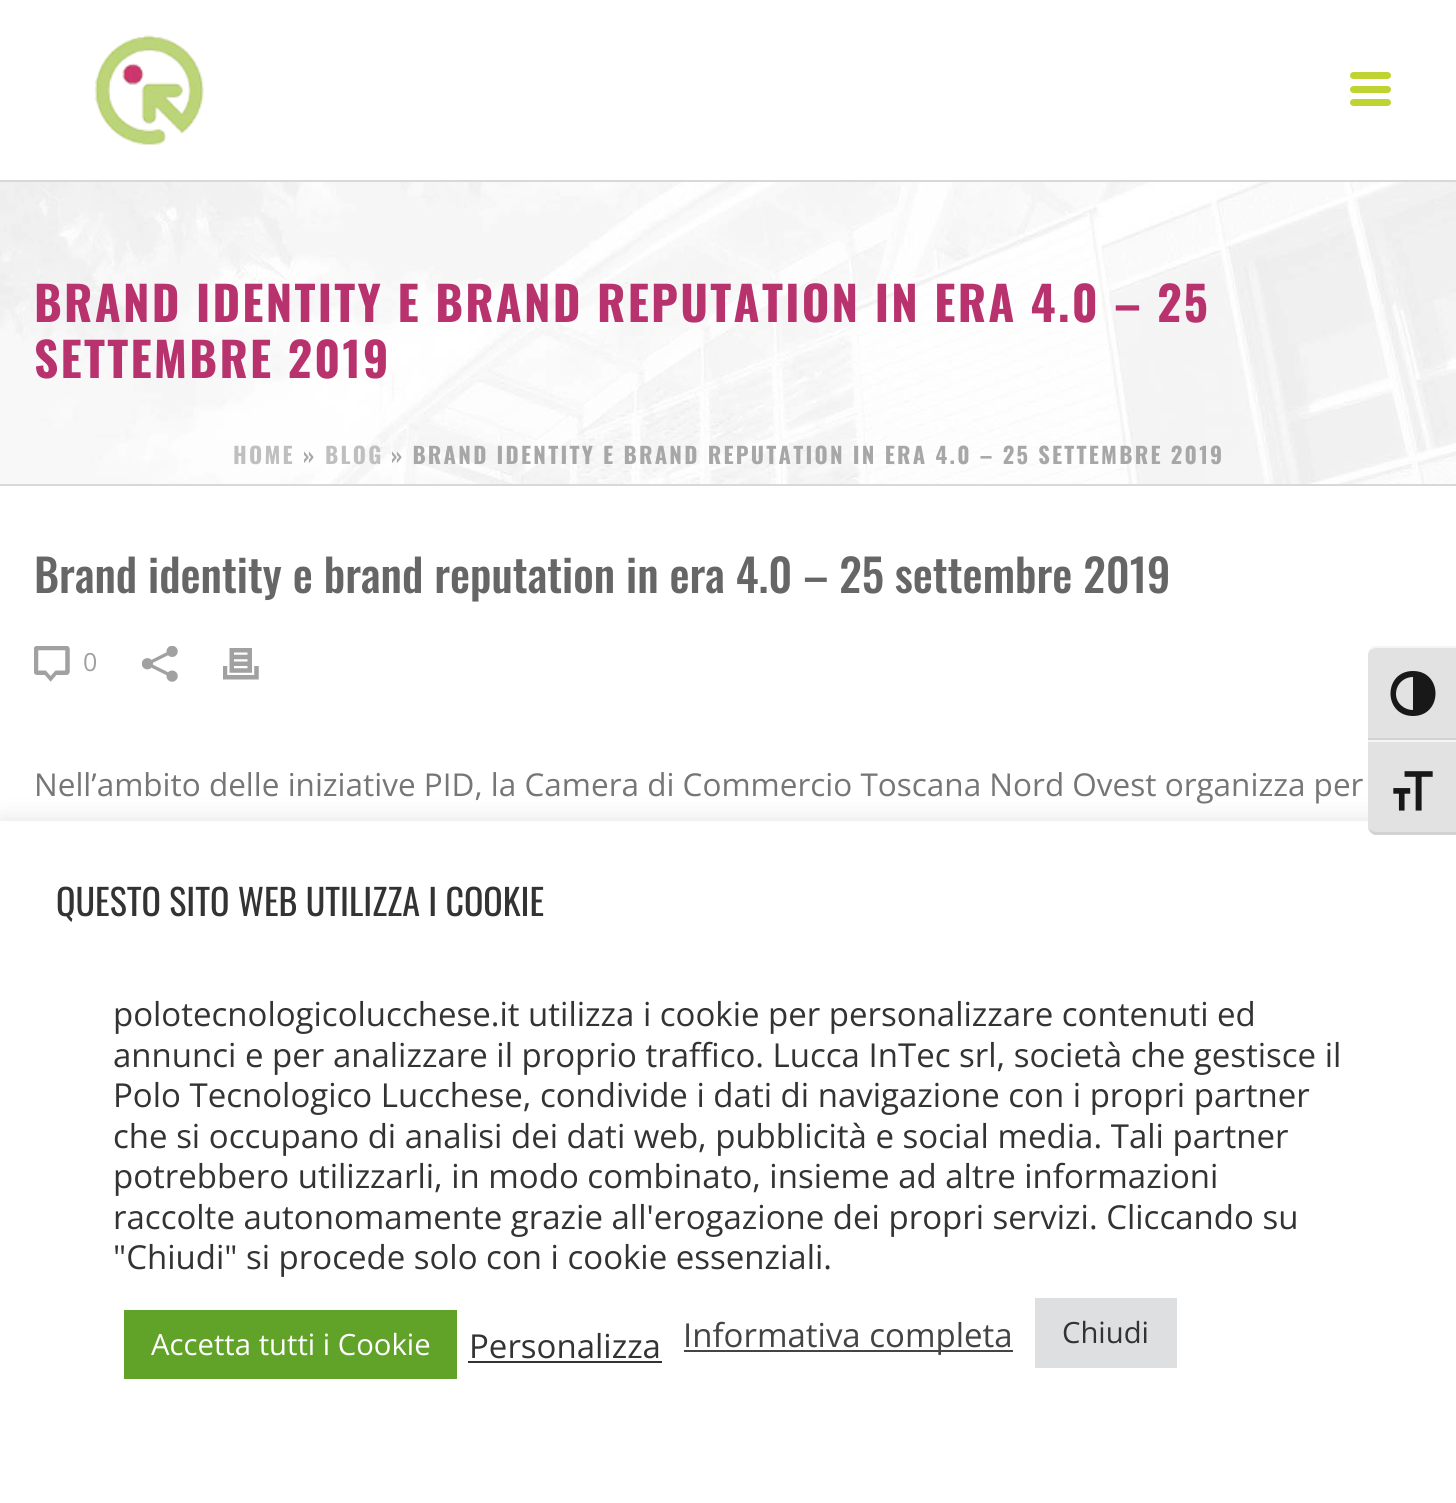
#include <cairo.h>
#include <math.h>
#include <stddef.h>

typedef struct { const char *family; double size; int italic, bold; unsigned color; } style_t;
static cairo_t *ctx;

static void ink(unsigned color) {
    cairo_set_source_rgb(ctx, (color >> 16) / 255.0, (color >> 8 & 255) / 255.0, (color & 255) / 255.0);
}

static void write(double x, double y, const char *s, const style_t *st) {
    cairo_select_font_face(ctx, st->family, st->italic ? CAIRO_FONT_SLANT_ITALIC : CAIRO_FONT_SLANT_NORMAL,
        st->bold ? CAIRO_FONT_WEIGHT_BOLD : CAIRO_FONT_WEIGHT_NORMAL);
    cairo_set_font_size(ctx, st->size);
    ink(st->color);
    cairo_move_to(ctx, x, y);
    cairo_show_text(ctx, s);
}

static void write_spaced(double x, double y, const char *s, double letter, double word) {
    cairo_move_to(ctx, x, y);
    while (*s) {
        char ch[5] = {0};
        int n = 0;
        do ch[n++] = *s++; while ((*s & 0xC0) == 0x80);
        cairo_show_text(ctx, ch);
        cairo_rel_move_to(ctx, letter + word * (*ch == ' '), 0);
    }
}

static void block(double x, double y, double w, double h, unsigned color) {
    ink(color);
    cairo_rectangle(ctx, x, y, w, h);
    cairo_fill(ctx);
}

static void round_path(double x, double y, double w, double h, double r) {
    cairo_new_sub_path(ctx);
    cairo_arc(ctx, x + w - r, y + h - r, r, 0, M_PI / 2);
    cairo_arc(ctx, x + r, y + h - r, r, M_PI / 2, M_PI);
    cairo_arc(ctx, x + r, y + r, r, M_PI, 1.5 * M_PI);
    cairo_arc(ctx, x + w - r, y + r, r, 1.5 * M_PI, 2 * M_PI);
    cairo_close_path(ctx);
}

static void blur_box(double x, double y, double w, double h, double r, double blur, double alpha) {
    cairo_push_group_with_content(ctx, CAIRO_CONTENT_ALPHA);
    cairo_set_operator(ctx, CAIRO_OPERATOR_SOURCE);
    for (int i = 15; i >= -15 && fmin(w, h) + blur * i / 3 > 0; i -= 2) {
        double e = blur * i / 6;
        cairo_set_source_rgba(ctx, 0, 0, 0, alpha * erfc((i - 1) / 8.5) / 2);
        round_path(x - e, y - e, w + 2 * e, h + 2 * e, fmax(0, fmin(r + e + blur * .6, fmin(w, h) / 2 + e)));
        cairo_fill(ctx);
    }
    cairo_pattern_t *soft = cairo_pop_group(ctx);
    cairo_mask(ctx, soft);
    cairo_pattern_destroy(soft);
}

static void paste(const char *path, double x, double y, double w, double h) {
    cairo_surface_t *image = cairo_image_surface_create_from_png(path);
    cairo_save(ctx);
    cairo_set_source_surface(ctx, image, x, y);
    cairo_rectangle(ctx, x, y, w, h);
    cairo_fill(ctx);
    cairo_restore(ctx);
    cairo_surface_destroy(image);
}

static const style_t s1 = {"Oswald Medium", 45, 0, 0, 0x666666};
static const style_t s2 = {"Open Sans", 25, 0, 0, 0xa1a1a1};
static const style_t s3 = {"Open Sans", 31.5, 0, 0, 0x767676};
static const style_t s4 = {"Oswald", 36, 0, 0, 0x333333};
static const style_t s5 = {"Open Sans", 33, 0, 0, 0x333333};
static const style_t s6 = {"Open Sans", 29.25, 0, 0, 0xffffff};
static const style_t s7 = {"Open Sans", 33, 0, 0, 0x444444};
static const style_t s8 = {"Open Sans", 29.25, 0, 0, 0x333333};

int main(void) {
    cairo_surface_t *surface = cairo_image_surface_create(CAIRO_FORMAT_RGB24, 1456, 1503);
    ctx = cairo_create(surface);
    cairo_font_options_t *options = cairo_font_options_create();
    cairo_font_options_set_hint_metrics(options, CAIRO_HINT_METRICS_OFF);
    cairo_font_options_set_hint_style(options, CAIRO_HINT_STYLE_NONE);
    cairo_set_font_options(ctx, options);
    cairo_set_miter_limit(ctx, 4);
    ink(0xffffff);
    cairo_paint(ctx);
    paste("pic1.png", 0, 182, 1456, 302);
    block(0, 484, 1456, 2, 0xd8d8d8);
    block(0, 180, 1456, 2, 0xd8d8d8);
    paste("pic2.png", 94, 35, 110, 110);
    ink(0xbfd333);
    round_path(1350, 72, 41, 7, 3.5);
    cairo_fill(ctx);
    round_path(1350, 86, 41, 7, 3.5);
    cairo_fill(ctx);
    round_path(1350, 99, 41, 7, 3.5);
    cairo_fill(ctx);
    cairo_select_font_face(ctx, "Oswald", CAIRO_FONT_SLANT_NORMAL, CAIRO_FONT_WEIGHT_BOLD);
    cairo_set_font_size(ctx, 47.25);
    ink(0xb8336e);
    write_spaced(34, 322, "BRAND IDENTITY E BRAND REPUTATION IN ERA 4.0 – 25", 2.25, 0);
    write_spaced(34, 378, "SETTEMBRE 2019", 2.25, 0);
    cairo_set_font_size(ctx, 22.5);
    ink(0xbfbfbf);
    write_spaced(233, 464, "HOME", 2.25, 0);
    ink(0xa7a7a7);
    write_spaced(303, 464, "»", 2.25, 0);
    ink(0xbfbfbf);
    write_spaced(325, 464, "BLOG", 2.25, 0);
    ink(0xa7a7a7);
    write_spaced(391, 464, "» BRAND IDENTITY E BRAND REPUTATION IN ERA 4.0 – 25 SETTEMBRE 2019", 2.25, 0);
    write(34, 593, "Brand identity e brand reputation in era 4.0 – 25 settembre 2019", &s1);
    paste("pic3.png", 34, 646, 36, 36);
    write(83, 671, "0", &s2);
    paste("pic4.png", 142, 646, 36, 36);
    paste("pic5.png", 223, 648, 36, 32);
    write(34, 796, "Nell’ambito delle iniziative PID, la Camera di Commercio Toscana Nord Ovest organizza per", &s3);
    ink(0xe2e2e2);
    cairo_new_path(ctx);
    cairo_move_to(ctx, 1377, 646);
    cairo_line_to(ctx, 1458, 646);
    cairo_line_to(ctx, 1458, 740);
    cairo_line_to(ctx, 1368, 740);
    cairo_line_to(ctx, 1368, 655);
    cairo_curve_to(ctx, 1368, 650, 1372, 646, 1377, 646);
    cairo_close_path(ctx);
    cairo_fill(ctx);
    ink(0xf5f5f5);
    cairo_new_path(ctx);
    cairo_move_to(ctx, 1377, 646);
    cairo_line_to(ctx, 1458, 646);
    cairo_line_to(ctx, 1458, 648);
    cairo_line_to(ctx, 1377, 648);
    cairo_curve_to(ctx, 1372, 648, 1368, 651, 1368, 655);
    cairo_curve_to(ctx, 1368, 650, 1372, 646, 1377, 646);
    cairo_close_path(ctx);
    cairo_fill(ctx);
    block(1368, 738, 88, 2, 0xd2d2d2);
    ink(0x181818);
    cairo_new_path(ctx);
    cairo_move_to(ctx, 1413, 671);
    cairo_curve_to(ctx, 1383, 671, 1383, 716, 1413, 716);
    cairo_curve_to(ctx, 1443, 716, 1443, 671, 1413, 671);
    cairo_close_path(ctx);
    cairo_move_to(ctx, 1396, 694);
    cairo_curve_to(ctx, 1396, 684, 1404, 677, 1413, 677);
    cairo_line_to(ctx, 1413, 710);
    cairo_curve_to(ctx, 1404, 710, 1396, 703, 1396, 694);
    cairo_close_path(ctx);
    cairo_fill(ctx);
    ink(0xacabab);
    blur_box(0, 819, 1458, 682, 0, 11, 0.3);
    block(0, 821, 1456, 682, 0xffffff);
    ink(0xe2e2e2);
    cairo_new_path(ctx);
    cairo_move_to(ctx, 1368, 740);
    cairo_line_to(ctx, 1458, 740);
    cairo_line_to(ctx, 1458, 835);
    cairo_line_to(ctx, 1377, 835);
    cairo_curve_to(ctx, 1372, 835, 1368, 831, 1368, 826);
    cairo_close_path(ctx);
    cairo_fill(ctx);
    block(1368, 740, 88, 2, 0xf5f5f5);
    ink(0xd2d2d2);
    cairo_new_path(ctx);
    cairo_move_to(ctx, 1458, 835);
    cairo_line_to(ctx, 1375, 835);
    cairo_curve_to(ctx, 1371, 834, 1368, 830, 1368, 826);
    cairo_curve_to(ctx, 1368, 829, 1372, 832, 1377, 832);
    cairo_line_to(ctx, 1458, 832);
    cairo_close_path(ctx);
    cairo_fill(ctx);
    paste("pic6.png", 1393, 771, 40, 40);
    write(56, 916, "QUESTO SITO WEB UTILIZZA I COOKIE", &s4);
    write(113, 1026, "polotecnologicolucchese.it utilizza i cookie per personalizzare contenuti ed", &s5);
    write(113, 1067, "annunci e per analizzare il proprio traffico. Lucca InTec srl, società che gestisce il", &s5);
    write(113, 1107, "Polo Tecnologico Lucchese, condivide i dati di navigazione con i propri partner", &s5);
    write(113, 1148, "che si occupano di analisi dei dati web, pubblicità e social media. Tali partner", &s5);
    write(113, 1188, "potrebbero utilizzarli, in modo combinato, insieme ad altre informazioni", &s5);
    write(113, 1229, "raccolte autonomamente grazie all'erogazione dei propri servizi. Cliccando su", &s5);
    write(113, 1269, "\"Chiudi\" si procede solo con i cookie essenziali.", &s5);
    block(124, 1310, 333, 69, 0x61a229);
    write(151, 1355, "Accetta tutti i Cookie", &s6);
    write(469, 1358, "Personalizza", &s5);
    block(468, 1361, 194, 2, 0x333333);
    block(684, 1350, 329, 2, 0x444444);
    write(683, 1347, "Informativa completa", &s7);
    block(1035, 1298, 142, 70, 0xdedfe0);
    write(1062, 1343, "Chiudi", &s8);
    cairo_surface_write_to_png(surface, "screenshot.png");
    cairo_font_options_destroy(options);
    cairo_destroy(ctx);
    cairo_surface_destroy(surface);
    return 0;
}
